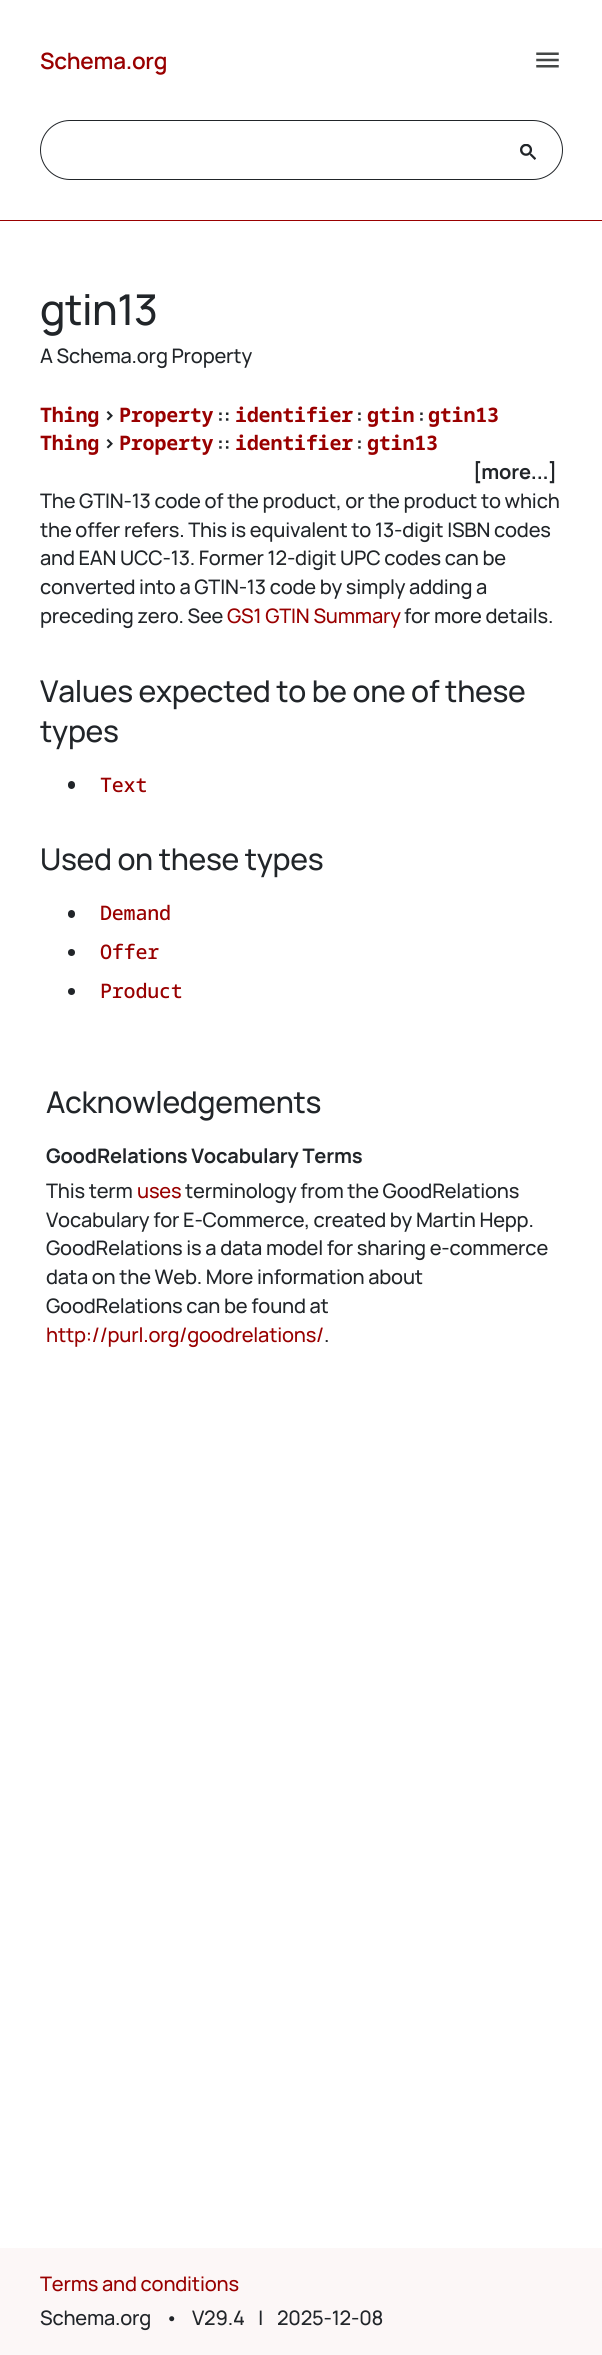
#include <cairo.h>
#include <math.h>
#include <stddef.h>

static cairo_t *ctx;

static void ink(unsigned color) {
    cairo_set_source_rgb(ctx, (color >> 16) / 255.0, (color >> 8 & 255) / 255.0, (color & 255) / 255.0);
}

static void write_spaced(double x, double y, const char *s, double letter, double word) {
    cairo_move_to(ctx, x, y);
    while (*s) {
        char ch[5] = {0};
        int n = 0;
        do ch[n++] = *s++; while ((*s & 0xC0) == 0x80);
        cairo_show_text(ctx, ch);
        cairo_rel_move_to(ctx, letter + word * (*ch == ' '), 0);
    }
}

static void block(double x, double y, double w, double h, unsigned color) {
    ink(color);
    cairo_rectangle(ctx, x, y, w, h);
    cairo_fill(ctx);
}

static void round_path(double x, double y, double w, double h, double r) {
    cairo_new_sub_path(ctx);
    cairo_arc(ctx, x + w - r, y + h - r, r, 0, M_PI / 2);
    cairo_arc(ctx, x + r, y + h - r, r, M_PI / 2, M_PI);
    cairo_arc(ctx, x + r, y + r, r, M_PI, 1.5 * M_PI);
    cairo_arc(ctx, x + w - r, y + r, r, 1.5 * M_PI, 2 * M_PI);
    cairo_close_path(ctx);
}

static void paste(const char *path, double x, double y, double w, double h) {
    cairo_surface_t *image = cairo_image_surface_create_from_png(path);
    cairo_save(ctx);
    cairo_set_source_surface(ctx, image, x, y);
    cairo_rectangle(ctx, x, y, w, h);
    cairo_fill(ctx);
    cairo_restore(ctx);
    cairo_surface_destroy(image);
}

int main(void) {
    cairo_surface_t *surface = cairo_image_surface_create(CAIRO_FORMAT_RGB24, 602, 2355);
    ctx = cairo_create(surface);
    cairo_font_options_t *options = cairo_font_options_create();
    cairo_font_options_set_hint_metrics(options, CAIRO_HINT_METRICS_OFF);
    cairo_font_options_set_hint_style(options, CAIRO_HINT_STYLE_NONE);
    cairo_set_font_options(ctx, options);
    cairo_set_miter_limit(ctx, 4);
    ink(0xffffff);
    cairo_paint(ctx);
    cairo_select_font_face(ctx, "Manrope SemiBold", CAIRO_FONT_SLANT_NORMAL, CAIRO_FONT_WEIGHT_NORMAL);
    cairo_set_font_size(ctx, 22.5);
    ink(0x990000);
    write_spaced(40, 69, "Schema.org", -0.25, 0);
    paste("pic1.png", 536, 52, 23, 16);
    round_path(40.5, 120.5, 522, 59, 29.5);
    ink(0x212529);
    cairo_set_line_width(ctx, 1);
    cairo_stroke(ctx);
    paste("pic2.png", 520, 144, 16, 16);
    block(0, 220, 602, 1, 0x990000);
    cairo_select_font_face(ctx, "Manrope Medium", CAIRO_FONT_SLANT_NORMAL, CAIRO_FONT_WEIGHT_NORMAL);
    cairo_set_font_size(ctx, 42.5);
    ink(0x212529);
    write_spaced(40, 325, "gtin13", -0.5, 0);
    cairo_set_font_size(ctx, 20);
    write_spaced(40, 363, "A Schema.org Property", -0.2, 0);
    cairo_select_font_face(ctx, "Noto Sans Mono", CAIRO_FONT_SLANT_NORMAL, CAIRO_FONT_WEIGHT_BOLD);
    ink(0x990000);
    write_spaced(40, 422, "Thing", -0.2, 0);
    cairo_select_font_face(ctx, "Manrope", CAIRO_FONT_SLANT_NORMAL, CAIRO_FONT_WEIGHT_BOLD);
    ink(0x212529);
    write_spaced(103, 422, ">", -0.2, 0);
    cairo_select_font_face(ctx, "Noto Sans Mono", CAIRO_FONT_SLANT_NORMAL, CAIRO_FONT_WEIGHT_BOLD);
    ink(0x990000);
    write_spaced(119, 422, "Property", -0.2, 0);
    cairo_select_font_face(ctx, "Manrope", CAIRO_FONT_SLANT_NORMAL, CAIRO_FONT_WEIGHT_BOLD);
    ink(0x212529);
    write_spaced(217, 422, "::", -0.2, 0);
    cairo_select_font_face(ctx, "Noto Sans Mono", CAIRO_FONT_SLANT_NORMAL, CAIRO_FONT_WEIGHT_BOLD);
    ink(0x990000);
    write_spaced(235, 422, "identifier", -0.2, 0);
    cairo_select_font_face(ctx, "Manrope", CAIRO_FONT_SLANT_NORMAL, CAIRO_FONT_WEIGHT_BOLD);
    ink(0x212529);
    write_spaced(356, 422, ":", -0.2, 0);
    cairo_select_font_face(ctx, "Noto Sans Mono", CAIRO_FONT_SLANT_NORMAL, CAIRO_FONT_WEIGHT_BOLD);
    ink(0x990000);
    write_spaced(367, 422, "gtin", -0.2, 0);
    cairo_select_font_face(ctx, "Manrope", CAIRO_FONT_SLANT_NORMAL, CAIRO_FONT_WEIGHT_BOLD);
    ink(0x212529);
    write_spaced(418, 422, ":", -0.2, 0);
    cairo_select_font_face(ctx, "Noto Sans Mono", CAIRO_FONT_SLANT_NORMAL, CAIRO_FONT_WEIGHT_BOLD);
    ink(0x990000);
    write_spaced(428, 422, "gtin13", -0.2, 0);
    write_spaced(40, 450, "Thing", -0.2, 0);
    cairo_select_font_face(ctx, "Manrope", CAIRO_FONT_SLANT_NORMAL, CAIRO_FONT_WEIGHT_BOLD);
    ink(0x212529);
    write_spaced(103, 450, ">", -0.2, 0);
    cairo_select_font_face(ctx, "Noto Sans Mono", CAIRO_FONT_SLANT_NORMAL, CAIRO_FONT_WEIGHT_BOLD);
    ink(0x990000);
    write_spaced(119, 450, "Property", -0.2, 0);
    cairo_select_font_face(ctx, "Manrope", CAIRO_FONT_SLANT_NORMAL, CAIRO_FONT_WEIGHT_BOLD);
    ink(0x212529);
    write_spaced(217, 450, "::", -0.2, 0);
    cairo_select_font_face(ctx, "Noto Sans Mono", CAIRO_FONT_SLANT_NORMAL, CAIRO_FONT_WEIGHT_BOLD);
    ink(0x990000);
    write_spaced(235, 450, "identifier", -0.2, 0);
    cairo_select_font_face(ctx, "Manrope", CAIRO_FONT_SLANT_NORMAL, CAIRO_FONT_WEIGHT_BOLD);
    ink(0x212529);
    write_spaced(356, 450, ":", -0.2, 0);
    cairo_select_font_face(ctx, "Noto Sans Mono", CAIRO_FONT_SLANT_NORMAL, CAIRO_FONT_WEIGHT_BOLD);
    ink(0x990000);
    write_spaced(367, 450, "gtin13", -0.2, 0);
    cairo_select_font_face(ctx, "Manrope", CAIRO_FONT_SLANT_NORMAL, CAIRO_FONT_WEIGHT_BOLD);
    ink(0x212529);
    write_spaced(473, 479, "[more...]", -0.2, 0);
    cairo_select_font_face(ctx, "Manrope Medium", CAIRO_FONT_SLANT_NORMAL, CAIRO_FONT_WEIGHT_NORMAL);
    write_spaced(40, 508, "The GTIN-13 code of the product, or the product to which", -0.2, 0);
    write_spaced(40, 537, "the offer refers. This is equivalent to 13-digit ISBN codes", -0.2, 0);
    write_spaced(40, 565, "and EAN UCC-13. Former 12-digit UPC codes can be", -0.2, 0);
    write_spaced(40, 594, "converted into a GTIN-13 code by simply adding a", -0.2, 0);
    write_spaced(40, 623, "preceding zero. See", -0.2, 0);
    ink(0x990000);
    write_spaced(227, 623, "GS1 GTIN Summary", -0.2, 0);
    ink(0x212529);
    write_spaced(404, 623, "for more details.", -0.2, 0);
    cairo_set_font_size(ctx, 30);
    write_spaced(40, 702, "Values expected to be one of these", -0.3, 0);
    write_spaced(40, 742, "types", -0.3, 0);
    round_path(68, 781, 7, 8, 3.5);
    cairo_fill(ctx);
    cairo_select_font_face(ctx, "Noto Sans Mono Medium", CAIRO_FONT_SLANT_NORMAL, CAIRO_FONT_WEIGHT_NORMAL);
    cairo_set_font_size(ctx, 20);
    ink(0x990000);
    write_spaced(100, 792, "Text", -0.2, 0);
    cairo_select_font_face(ctx, "Manrope Medium", CAIRO_FONT_SLANT_NORMAL, CAIRO_FONT_WEIGHT_NORMAL);
    cairo_set_font_size(ctx, 30);
    ink(0x212529);
    write_spaced(40, 870, "Used on these types", -0.3, 0);
    round_path(68, 910, 7, 8, 3.5);
    cairo_fill(ctx);
    cairo_select_font_face(ctx, "Noto Sans Mono Medium", CAIRO_FONT_SLANT_NORMAL, CAIRO_FONT_WEIGHT_NORMAL);
    cairo_set_font_size(ctx, 20);
    ink(0x990000);
    write_spaced(100, 920, "Demand", -0.2, 0);
    ink(0x212529);
    cairo_new_path(ctx);
    cairo_arc(ctx, 71.5, 952.5, 3.5, 0, 2 * M_PI);
    cairo_fill(ctx);
    ink(0x990000);
    write_spaced(100, 959, "Offer", -0.2, 0);
    ink(0x212529);
    cairo_new_path(ctx);
    cairo_arc(ctx, 71.5, 991.5, 3.5, 0, 2 * M_PI);
    cairo_fill(ctx);
    ink(0x990000);
    write_spaced(100, 998, "Product", -0.2, 0);
    cairo_select_font_face(ctx, "Manrope Medium", CAIRO_FONT_SLANT_NORMAL, CAIRO_FONT_WEIGHT_NORMAL);
    cairo_set_font_size(ctx, 30);
    ink(0x212529);
    write_spaced(46, 1113, "Acknowledgements", -0.3, 0);
    cairo_select_font_face(ctx, "Manrope", CAIRO_FONT_SLANT_NORMAL, CAIRO_FONT_WEIGHT_BOLD);
    cairo_set_font_size(ctx, 20);
    write_spaced(46, 1163, "GoodRelations Vocabulary Terms", -0.2, 0);
    cairo_select_font_face(ctx, "Manrope Medium", CAIRO_FONT_SLANT_NORMAL, CAIRO_FONT_WEIGHT_NORMAL);
    write_spaced(46, 1198, "This term", -0.2, 0);
    ink(0x990000);
    write_spaced(137, 1198, "uses", -0.2, 0);
    ink(0x212529);
    write_spaced(185, 1198, "terminology from the GoodRelations", -0.2, 0);
    write_spaced(46, 1227, "Vocabulary for E-Commerce, created by Martin Hepp.", -0.2, 0);
    write_spaced(46, 1255, "GoodRelations is a data model for sharing e-commerce", -0.2, 0);
    write_spaced(46, 1284, "data on the Web. More information about", -0.2, 0);
    write_spaced(46, 1313, "GoodRelations can be found at", -0.2, 0);
    ink(0x990000);
    write_spaced(46, 1342, "http://purl.org/goodrelations/", -0.2, 0);
    ink(0x212529);
    write_spaced(324, 1342, ".", -0.2, 0);
    block(0, 2248, 602, 107, 0xfcf7f7);
    ink(0x990000);
    write_spaced(40, 2291, "Terms and conditions", -0.2, 0);
    ink(0x212529);
    write_spaced(40, 2325, "Schema.org", -0.2, 0);
    write_spaced(165, 2325, "•", -0.2, 0);
    write_spaced(192, 2325, "V29.4", -0.2, 0);
    write_spaced(258, 2325, "|", -0.2, 0);
    write_spaced(277, 2325, "2025-12-08", -0.2, 0);
    cairo_surface_write_to_png(surface, "screenshot.png");
    cairo_font_options_destroy(options);
    cairo_destroy(ctx);
    cairo_surface_destroy(surface);
    return 0;
}
